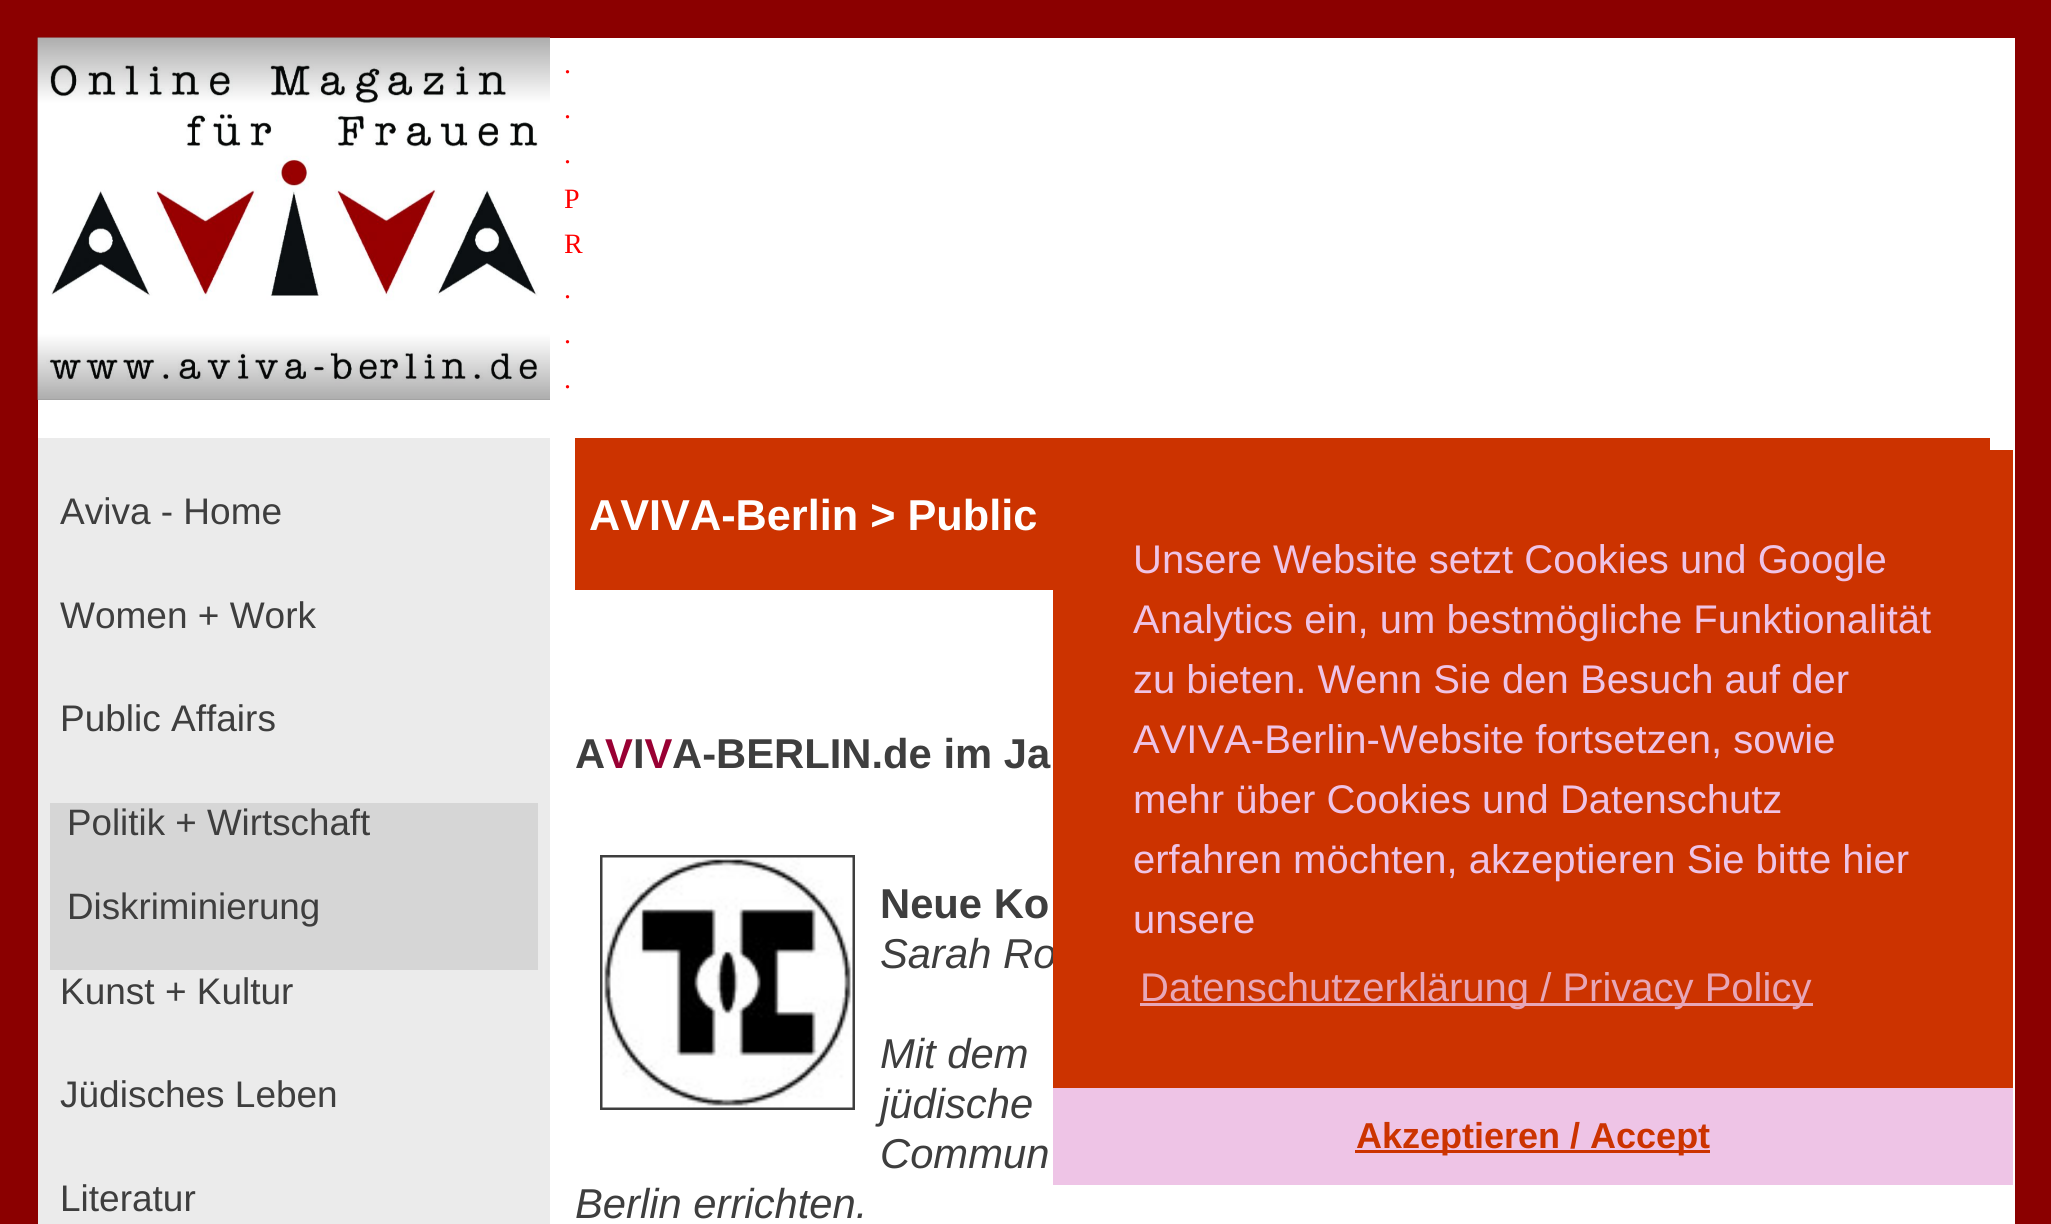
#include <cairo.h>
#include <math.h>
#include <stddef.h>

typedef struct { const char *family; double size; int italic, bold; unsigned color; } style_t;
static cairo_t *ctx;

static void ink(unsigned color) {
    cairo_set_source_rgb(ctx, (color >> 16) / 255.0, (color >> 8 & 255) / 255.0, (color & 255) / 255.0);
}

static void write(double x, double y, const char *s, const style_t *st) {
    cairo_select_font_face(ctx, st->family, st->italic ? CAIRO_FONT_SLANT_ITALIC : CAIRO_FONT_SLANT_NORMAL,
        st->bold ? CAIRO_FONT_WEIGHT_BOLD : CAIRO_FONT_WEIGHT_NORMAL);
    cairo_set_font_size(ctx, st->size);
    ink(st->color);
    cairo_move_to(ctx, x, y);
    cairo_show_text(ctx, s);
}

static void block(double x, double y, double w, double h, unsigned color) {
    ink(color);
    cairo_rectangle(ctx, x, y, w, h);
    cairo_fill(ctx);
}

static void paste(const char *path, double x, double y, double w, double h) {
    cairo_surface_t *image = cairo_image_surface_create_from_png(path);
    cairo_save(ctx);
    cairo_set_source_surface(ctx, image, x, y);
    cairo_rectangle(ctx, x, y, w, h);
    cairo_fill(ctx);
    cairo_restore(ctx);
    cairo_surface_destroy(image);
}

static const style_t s1 = {"Liberation Serif", 28, 0, 0, 0xff0000};
static const style_t s2 = {"Liberation Sans", 37, 0, 0, 0x3e3e3e};
static const style_t s3 = {"Liberation Sans", 36.75, 0, 0, 0x3e3e3e};
static const style_t s4 = {"Liberation Sans", 43.25, 0, 1, 0xffffff};
static const style_t s5 = {"Liberation Sans", 41.75, 0, 1, 0x3e3e3e};
static const style_t s6 = {"Liberation Sans", 41.75, 0, 1, 0x990033};
static const style_t s7 = {"Liberation Sans", 41.75, 1, 0, 0x3e3e3e};
static const style_t s8 = {"Liberation Sans", 40, 0, 0, 0xeec4e6};
static const style_t s9 = {"Liberation Sans", 40, 0, 0, 0xe7a7b8};
static const style_t s10 = {"Liberation Sans", 36, 0, 1, 0xcc3300};

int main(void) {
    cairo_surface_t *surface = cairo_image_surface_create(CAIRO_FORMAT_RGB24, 2051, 1224);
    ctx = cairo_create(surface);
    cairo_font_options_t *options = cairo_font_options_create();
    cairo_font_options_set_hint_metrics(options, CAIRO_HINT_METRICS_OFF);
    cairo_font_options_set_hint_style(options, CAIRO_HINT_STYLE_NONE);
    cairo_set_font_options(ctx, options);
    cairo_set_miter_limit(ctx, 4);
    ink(0x8b0000);
    cairo_paint(ctx);
    block(38, 38, 1977, 400, 0xffffff);
    paste("pic1.png", 37, 37, 513, 363);
    write(564, 73, ".", &s1);
    write(564, 118, ".", &s1);
    write(564, 163, ".", &s1);
    write(564, 208, "P", &s1);
    write(564, 253, "R", &s1);
    write(564, 298, ".", &s1);
    write(564, 343, ".", &s1);
    write(564, 388, ".", &s1);
    block(38, 438, 512, 786, 0xebebeb);
    write(60, 524, "Aviva - Home", &s2);
    write(60, 628, "Women + Work", &s2);
    write(60, 731, "Public Affairs", &s2);
    block(50, 803, 488, 167, 0xd6d6d6);
    write(67, 835, "Politik + Wirtschaft", &s3);
    write(67, 919, "Diskriminierung", &s3);
    write(60, 1004, "Kunst + Kultur", &s2);
    write(60, 1107, "Jüdisches Leben", &s2);
    write(60, 1211, "Literatur", &s2);
    block(550, 438, 1465, 786, 0xffffff);
    block(575, 438, 1415, 152, 0xcc3300);
    write(589, 530, "AVIVA-Berlin > Public", &s4);
    write(575, 768, "A", &s5);
    write(605, 768, "V V", &s6);
    write(672, 768, "A-BERLIN.de im Ja", &s5);
    write(633, 768, "I", &s5);
    cairo_rectangle(ctx, 601.5, 856.5, 252, 252);
    cairo_set_line_width(ctx, 3);
    cairo_stroke(ctx);
    paste("pic2.png", 602, 857, 251, 251);
    write(880, 918, "Neue Ko", &s5);
    write(880, 968, "Sarah Ro", &s7);
    write(880, 1068, "Mit dem", &s7);
    write(880, 1118, "jüdische", &s7);
    write(880, 1168, "Commun", &s7);
    write(575, 1218, "Berlin errichten.", &s7);
    block(1053, 450, 960, 638, 0xcc3300);
    write(1133, 573, "Unsere Website setzt Cookies und Google", &s8);
    write(1133, 633, "Analytics ein, um bestmögliche Funktionalität", &s8);
    write(1133, 693, "zu bieten. Wenn Sie den Besuch auf der", &s8);
    write(1133, 753, "AVIVA-Berlin-Website fortsetzen, sowie", &s8);
    write(1133, 813, "mehr über Cookies und Datenschutz", &s8);
    write(1133, 873, "erfahren möchten, akzeptieren Sie bitte hier", &s8);
    write(1133, 933, "unsere", &s8);
    block(1140, 1003, 673, 3, 0xe7a7b8);
    write(1140, 1001, "Datenschutzerklärung / Privacy Policy", &s9);
    block(1053, 1088, 960, 97, 0xeec4e6);
    block(1355, 1150, 355, 3, 0xcc3300);
    write(1356, 1148, "Akzeptieren / Accept", &s10);
    cairo_surface_write_to_png(surface, "screenshot.png");
    cairo_font_options_destroy(options);
    cairo_destroy(ctx);
    cairo_surface_destroy(surface);
    return 0;
}
